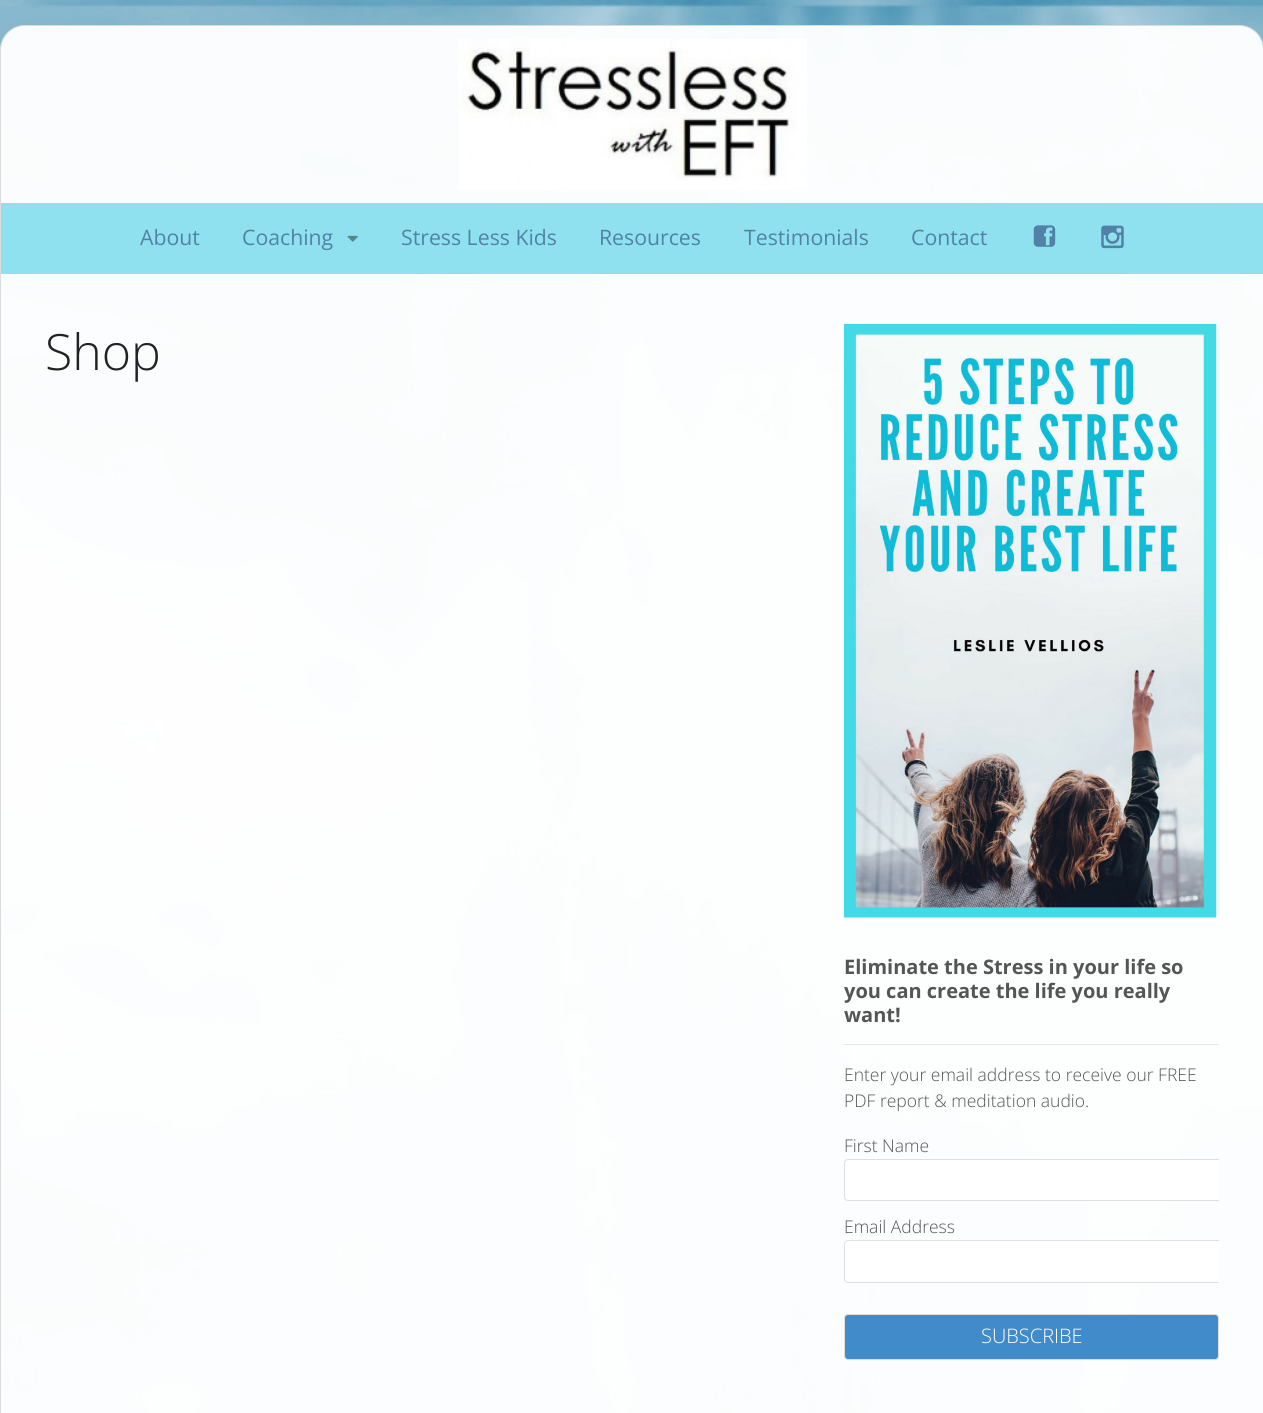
#include <cairo.h>
#include <math.h>
#include <stddef.h>

typedef struct { const char *family; double size; int italic, bold; unsigned color; } style_t;
static cairo_t *ctx;

static void ink(unsigned color) {
    cairo_set_source_rgb(ctx, (color >> 16) / 255.0, (color >> 8 & 255) / 255.0, (color & 255) / 255.0);
}

static void write(double x, double y, const char *s, const style_t *st) {
    cairo_select_font_face(ctx, st->family, st->italic ? CAIRO_FONT_SLANT_ITALIC : CAIRO_FONT_SLANT_NORMAL,
        st->bold ? CAIRO_FONT_WEIGHT_BOLD : CAIRO_FONT_WEIGHT_NORMAL);
    cairo_set_font_size(ctx, st->size);
    ink(st->color);
    cairo_move_to(ctx, x, y);
    cairo_show_text(ctx, s);
}

static void block(double x, double y, double w, double h, unsigned color) {
    ink(color);
    cairo_rectangle(ctx, x, y, w, h);
    cairo_fill(ctx);
}

static void round_path(double x, double y, double w, double h, double r) {
    cairo_new_sub_path(ctx);
    cairo_arc(ctx, x + w - r, y + h - r, r, 0, M_PI / 2);
    cairo_arc(ctx, x + r, y + h - r, r, M_PI / 2, M_PI);
    cairo_arc(ctx, x + r, y + r, r, M_PI, 1.5 * M_PI);
    cairo_arc(ctx, x + w - r, y + r, r, 1.5 * M_PI, 2 * M_PI);
    cairo_close_path(ctx);
}

static void paste(const char *path, double x, double y, double w, double h) {
    cairo_surface_t *image = cairo_image_surface_create_from_png(path);
    cairo_save(ctx);
    cairo_set_source_surface(ctx, image, x, y);
    cairo_rectangle(ctx, x, y, w, h);
    cairo_fill(ctx);
    cairo_restore(ctx);
    cairo_surface_destroy(image);
}

static const style_t s1 = {"Open Sans", 21.25, 0, 0, 0x5182a5};
static const style_t s2 = {"Open Sans Light", 50, 0, 0, 0x222222};
static const style_t s3 = {"Open Sans", 20, 0, 1, 0x555555};
static const style_t s4 = {"Open Sans Light", 17.5, 0, 0, 0x555555};
static const style_t s5 = {"Open Sans Light", 20, 0, 0, 0xffffff};

int main(void) {
    cairo_surface_t *surface = cairo_image_surface_create(CAIRO_FORMAT_RGB24, 1263, 1413);
    ctx = cairo_create(surface);
    cairo_font_options_t *options = cairo_font_options_create();
    cairo_font_options_set_hint_metrics(options, CAIRO_HINT_METRICS_OFF);
    cairo_font_options_set_hint_style(options, CAIRO_HINT_STYLE_NONE);
    cairo_set_font_options(ctx, options);
    cairo_set_miter_limit(ctx, 4);
    ink(0xffffff);
    cairo_paint(ctx);
    paste("pic1.png", 0, 0, 1263, 1413);
    cairo_set_source_rgba(ctx, 1, 1, 1, 0.96);
    round_path(0.5, 25.5, 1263, 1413, 24.5);
    cairo_fill_preserve(ctx);
    ink(0xdbdbdb);
    cairo_set_line_width(ctx, 1);
    cairo_stroke(ctx);
    paste("pic2.png", 458, 39, 349, 151);
    block(1, 203, 1262, 71, 0x90e1ef);
    write(140, 245, "About", &s1);
    write(242, 245, "Coaching", &s1);
    paste("pic3.png", 347, 235, 11, 7);
    write(401, 245, "Stress Less Kids", &s1);
    write(599, 245, "Resources", &s1);
    write(744, 245, "Testimonials", &s1);
    write(911, 245, "Contact", &s1);
    paste("pic4.png", 1033, 225, 23, 22);
    paste("pic5.png", 1101, 225, 23, 24);
    write(45, 370, "Shop", &s2);
    paste("pic6.png", 843, 323, 374, 595);
    block(844, 1044, 375, 1, 0xe6e6e6);
    write(844, 974, "Eliminate the Stress in your life so", &s3);
    write(844, 998, "you can create the life you really", &s3);
    write(844, 1022, "want!", &s3);
    write(844, 1081, "Enter your email address to receive our FREE", &s4);
    write(844, 1107, "PDF report & meditation audio.", &s4);
    write(844, 1152, "First Name", &s4);
    ink(0xffffff);
    cairo_new_path(ctx);
    cairo_move_to(ctx, 848, 1159);
    cairo_line_to(ctx, 1219, 1159);
    cairo_line_to(ctx, 1219, 1201);
    cairo_line_to(ctx, 848, 1201);
    cairo_curve_to(ctx, 846, 1201, 844, 1199, 844, 1197);
    cairo_line_to(ctx, 844, 1163);
    cairo_curve_to(ctx, 844, 1161, 846, 1159, 848, 1159);
    cairo_close_path(ctx);
    cairo_fill(ctx);
    cairo_save(ctx);
    cairo_rectangle(ctx, 844, 324, 375, 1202);
    cairo_clip(ctx);
    round_path(844.5, 1159.5, 389, 41, 3.5);
    ink(0xdfdfdf);
    cairo_stroke(ctx);
    cairo_restore(ctx);
    write(844, 1233, "Email Address", &s4);
    ink(0xffffff);
    cairo_new_path(ctx);
    cairo_move_to(ctx, 848, 1240);
    cairo_line_to(ctx, 1219, 1240);
    cairo_line_to(ctx, 1219, 1283);
    cairo_line_to(ctx, 848, 1283);
    cairo_curve_to(ctx, 846, 1283, 844, 1281, 844, 1279);
    cairo_line_to(ctx, 844, 1244);
    cairo_curve_to(ctx, 844, 1242, 846, 1240, 848, 1240);
    cairo_close_path(ctx);
    cairo_fill(ctx);
    cairo_save(ctx);
    cairo_rectangle(ctx, 844, 324, 375, 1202);
    cairo_clip(ctx);
    round_path(844.5, 1240.5, 389, 42, 3.5);
    ink(0xdfdfdf);
    cairo_stroke(ctx);
    cairo_restore(ctx);
    ink(0x428bca);
    round_path(844.5, 1314.5, 374, 45, 3.5);
    cairo_fill_preserve(ctx);
    ink(0xdfdfdf);
    cairo_stroke(ctx);
    write(981, 1343, "SUBSCRIBE", &s5);
    cairo_surface_write_to_png(surface, "screenshot.png");
    cairo_font_options_destroy(options);
    cairo_destroy(ctx);
    cairo_surface_destroy(surface);
    return 0;
}
